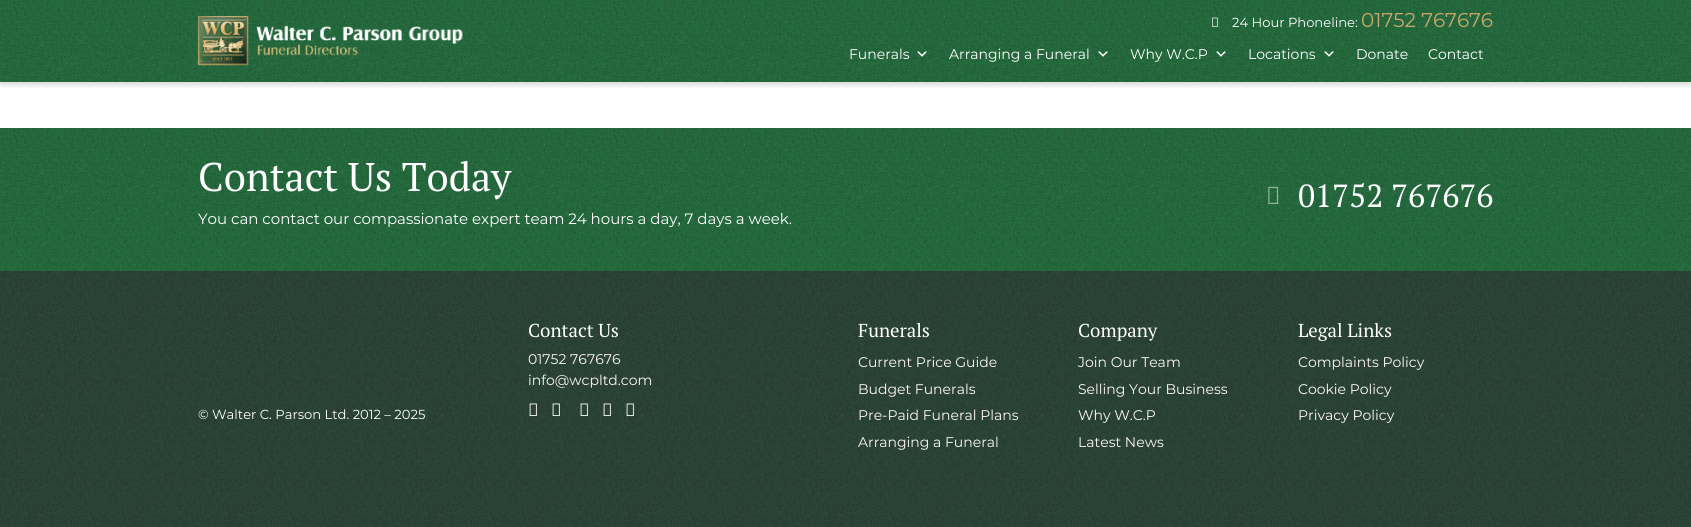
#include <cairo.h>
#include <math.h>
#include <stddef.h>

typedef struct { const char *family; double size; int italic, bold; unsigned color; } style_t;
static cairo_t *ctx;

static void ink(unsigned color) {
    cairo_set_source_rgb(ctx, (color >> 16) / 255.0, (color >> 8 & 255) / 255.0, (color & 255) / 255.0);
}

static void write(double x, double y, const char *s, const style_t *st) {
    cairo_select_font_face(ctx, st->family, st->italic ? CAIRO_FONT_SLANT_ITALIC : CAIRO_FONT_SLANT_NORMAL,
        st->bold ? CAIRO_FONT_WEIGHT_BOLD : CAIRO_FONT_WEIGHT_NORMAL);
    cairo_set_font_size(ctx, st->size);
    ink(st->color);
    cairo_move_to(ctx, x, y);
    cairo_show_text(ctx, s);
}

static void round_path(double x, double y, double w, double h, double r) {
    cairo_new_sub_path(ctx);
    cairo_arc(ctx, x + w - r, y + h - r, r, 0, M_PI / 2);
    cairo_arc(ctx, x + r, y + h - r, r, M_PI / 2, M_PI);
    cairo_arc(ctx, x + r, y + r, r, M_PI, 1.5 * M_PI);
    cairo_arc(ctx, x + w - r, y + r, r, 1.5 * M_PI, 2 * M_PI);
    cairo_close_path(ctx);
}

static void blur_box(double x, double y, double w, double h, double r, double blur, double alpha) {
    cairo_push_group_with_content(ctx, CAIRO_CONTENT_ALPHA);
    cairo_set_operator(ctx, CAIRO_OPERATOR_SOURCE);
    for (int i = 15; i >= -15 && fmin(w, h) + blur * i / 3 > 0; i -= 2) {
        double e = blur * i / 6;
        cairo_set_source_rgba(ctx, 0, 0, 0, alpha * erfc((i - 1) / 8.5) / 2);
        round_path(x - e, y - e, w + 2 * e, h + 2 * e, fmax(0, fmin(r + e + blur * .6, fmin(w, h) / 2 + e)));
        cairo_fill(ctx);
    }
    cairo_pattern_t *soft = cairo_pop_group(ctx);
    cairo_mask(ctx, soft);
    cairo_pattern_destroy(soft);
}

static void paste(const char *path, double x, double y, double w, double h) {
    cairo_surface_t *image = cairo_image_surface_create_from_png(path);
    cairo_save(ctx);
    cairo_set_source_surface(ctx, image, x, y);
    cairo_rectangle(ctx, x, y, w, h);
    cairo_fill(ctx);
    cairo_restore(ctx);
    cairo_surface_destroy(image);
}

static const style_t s1 = {"Montserrat Thin", 13.1, 0, 0, 0xffffff};
static const style_t s2 = {"Montserrat Thin", 20, 0, 0, 0xc7a86a};
static const style_t s3 = {"Montserrat Thin", 14, 0, 0, 0xffffff};
static const style_t s4 = {"PT Serif", 40, 0, 0, 0xffffff};
static const style_t s5 = {"Montserrat Thin", 15, 0, 0, 0xffffff};
static const style_t s6 = {"PT Serif", 32, 0, 0, 0xffffff};
static const style_t s7 = {"PT Serif", 18.75, 0, 0, 0xffffff};
static const style_t s8 = {"Montserrat Thin", 14, 0, 0, 0xfcf8f5};

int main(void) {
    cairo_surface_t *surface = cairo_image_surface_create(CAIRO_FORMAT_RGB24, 1691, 527);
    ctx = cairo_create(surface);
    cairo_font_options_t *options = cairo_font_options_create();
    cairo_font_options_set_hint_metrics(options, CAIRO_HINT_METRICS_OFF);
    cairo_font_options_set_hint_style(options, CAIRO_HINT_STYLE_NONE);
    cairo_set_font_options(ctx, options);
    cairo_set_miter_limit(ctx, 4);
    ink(0xffffff);
    cairo_paint(ctx);
    paste("pic1.png", 0, 0, 1691, 82);
    cairo_save(ctx);
    cairo_rectangle(ctx, 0, 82, 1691, 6);
    cairo_clip(ctx);
    ink(0x000000);
    blur_box(0, 3, 1691, 82, 0, 3, 0.16);
    cairo_restore(ctx);
    paste("pic2.png", 197, 16, 266, 50);
    paste("pic3.png", 1212, 17, 6, 10);
    write(1232, 27, "24 Hour Phoneline:", &s1);
    write(1361, 27, "01752 767676", &s2);
    write(849, 59, "Funerals", &s3);
    paste("pic4.png", 917, 51, 10, 6);
    write(949, 59, "Arranging a Funeral", &s3);
    paste("pic5.png", 1098, 51, 10, 6);
    write(1130, 59, "Why W.C.P", &s3);
    paste("pic6.png", 1216, 51, 10, 6);
    write(1248, 59, "Locations", &s3);
    paste("pic7.png", 1324, 51, 10, 6);
    write(1356, 59, "Donate", &s3);
    write(1428, 59, "Contact", &s3);
    paste("pic8.png", 0, 128, 1691, 143);
    write(198, 191, "Contact Us Today", &s4);
    write(198, 224, "You can contact our compassionate expert team 24 hours a day, 7 days a week.", &s5);
    paste("pic9.png", 1268, 186, 11, 18);
    write(1298, 207, "01752 767676", &s6);
    paste("pic10.png", 0, 271, 1691, 256);
    write(198, 419, "© Walter C. Parson Ltd. 2012 – 2025", &s1);
    write(528, 337, "Contact Us", &s7);
    write(528, 364, "01752 767676", &s8);
    write(528, 385, "info@wcpltd.com", &s8);
    paste("pic11.png", 529, 403, 8, 13);
    paste("pic12.png", 552, 403, 8, 13);
    paste("pic13.png", 580, 403, 8, 13);
    paste("pic14.png", 603, 403, 8, 13);
    paste("pic15.png", 626, 403, 8, 13);
    write(858, 337, "Funerals", &s7);
    write(858, 367, "Current Price Guide", &s8);
    write(858, 394, "Budget Funerals", &s8);
    write(858, 420, "Pre-Paid Funeral Plans", &s8);
    write(858, 447, "Arranging a Funeral", &s8);
    write(1078, 337, "Company", &s7);
    write(1078, 367, "Join Our Team", &s8);
    write(1078, 394, "Selling Your Business", &s8);
    write(1078, 420, "Why W.C.P", &s8);
    write(1078, 447, "Latest News", &s8);
    write(1298, 337, "Legal Links", &s7);
    write(1298, 367, "Complaints Policy", &s8);
    write(1298, 394, "Cookie Policy", &s8);
    write(1298, 420, "Privacy Policy", &s8);
    cairo_surface_write_to_png(surface, "screenshot.png");
    cairo_font_options_destroy(options);
    cairo_destroy(ctx);
    cairo_surface_destroy(surface);
    return 0;
}
